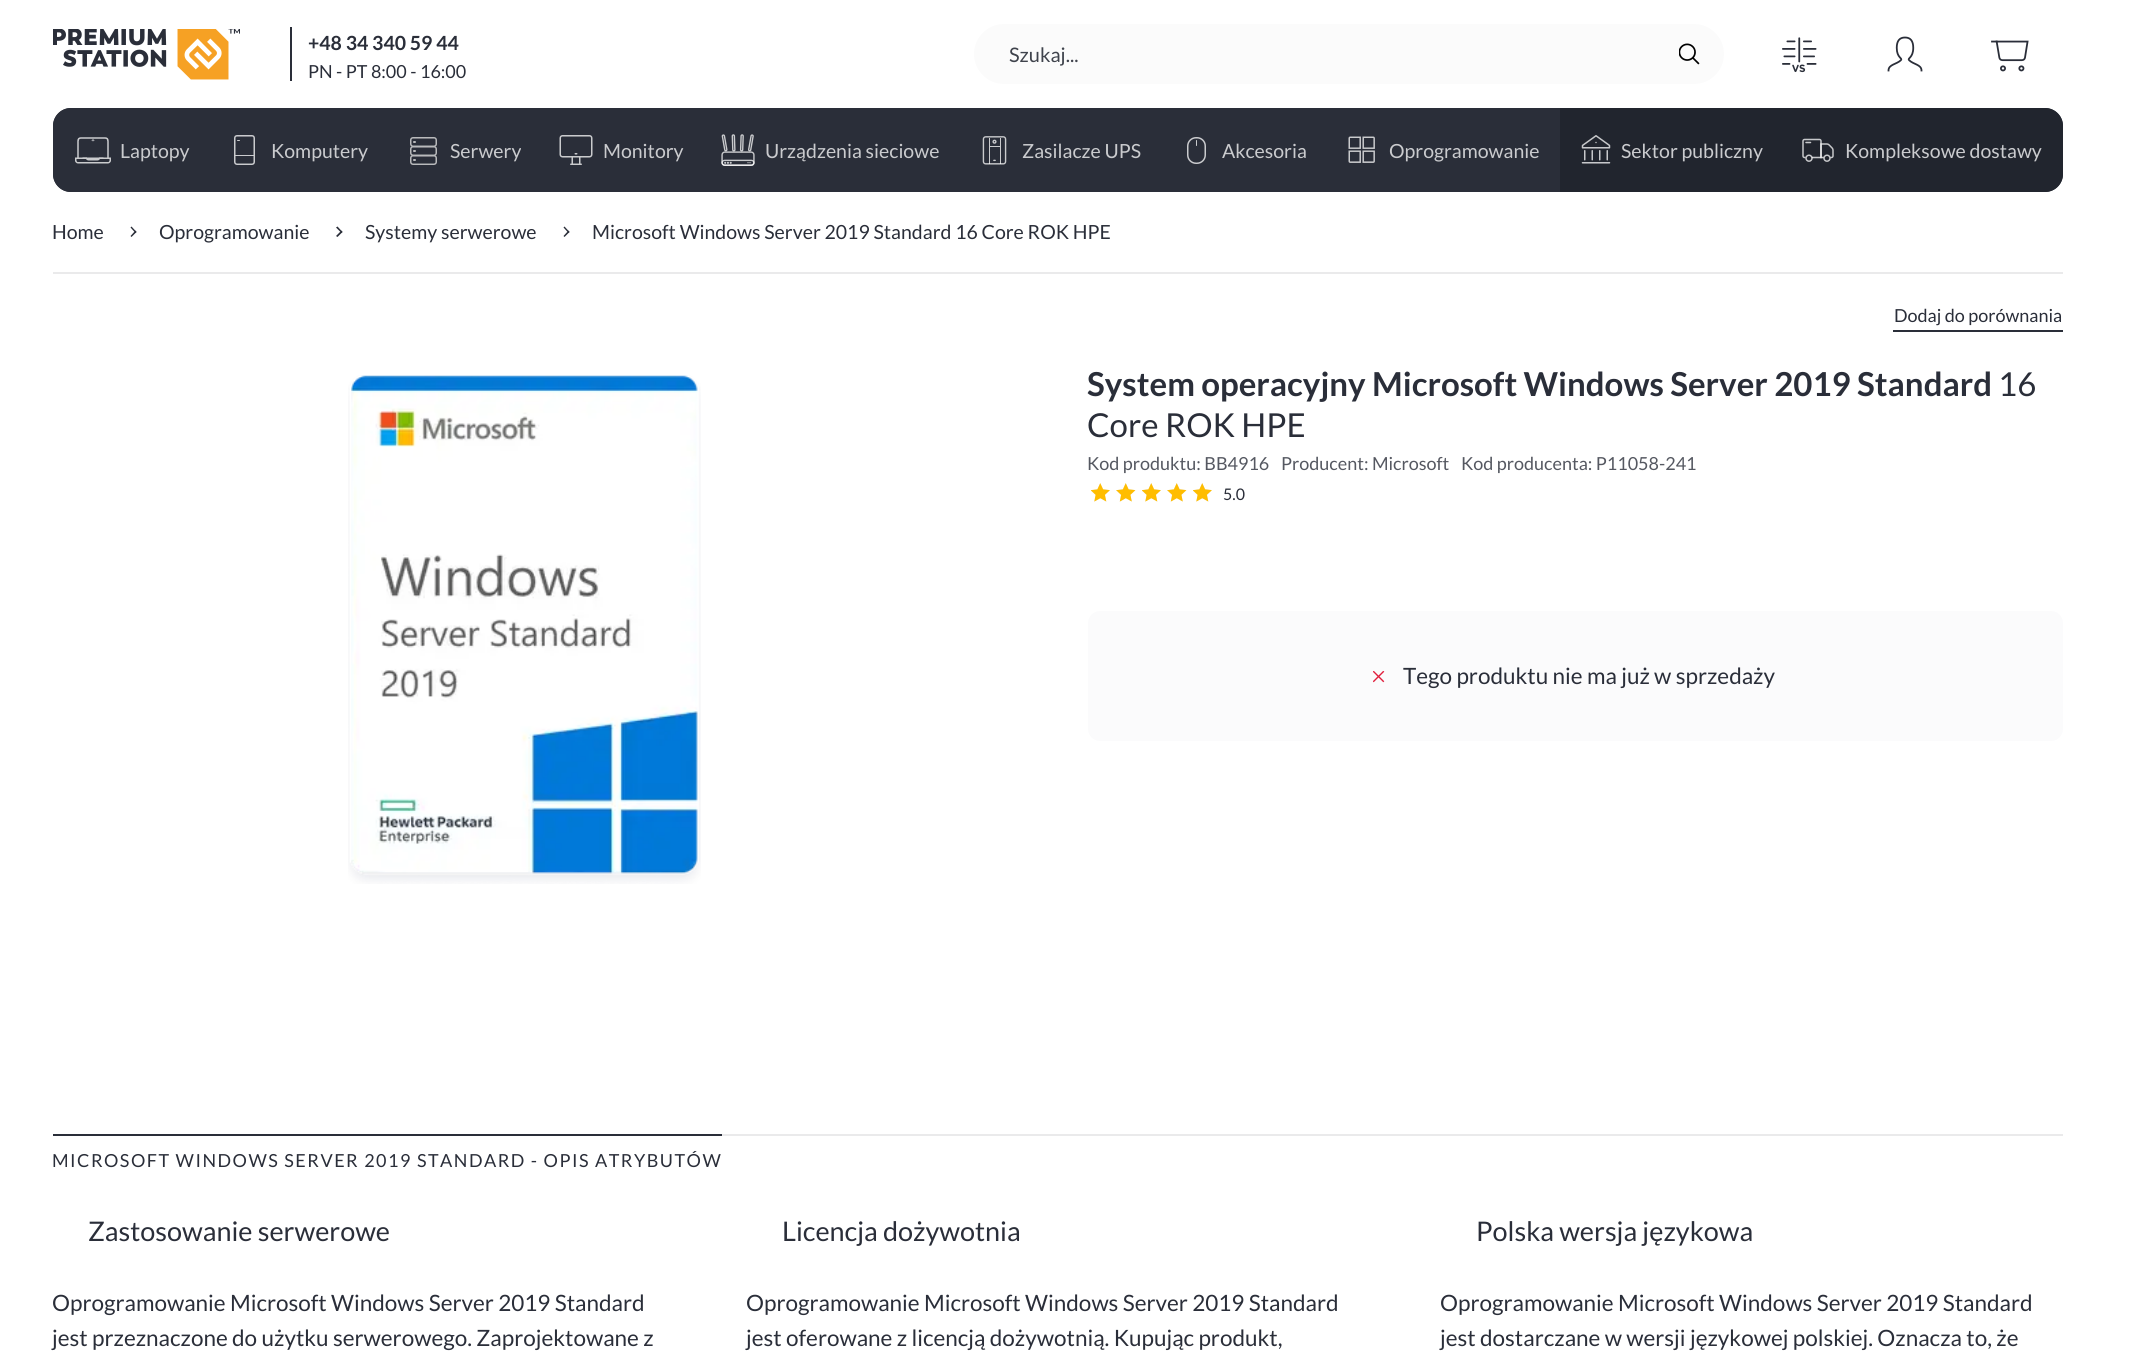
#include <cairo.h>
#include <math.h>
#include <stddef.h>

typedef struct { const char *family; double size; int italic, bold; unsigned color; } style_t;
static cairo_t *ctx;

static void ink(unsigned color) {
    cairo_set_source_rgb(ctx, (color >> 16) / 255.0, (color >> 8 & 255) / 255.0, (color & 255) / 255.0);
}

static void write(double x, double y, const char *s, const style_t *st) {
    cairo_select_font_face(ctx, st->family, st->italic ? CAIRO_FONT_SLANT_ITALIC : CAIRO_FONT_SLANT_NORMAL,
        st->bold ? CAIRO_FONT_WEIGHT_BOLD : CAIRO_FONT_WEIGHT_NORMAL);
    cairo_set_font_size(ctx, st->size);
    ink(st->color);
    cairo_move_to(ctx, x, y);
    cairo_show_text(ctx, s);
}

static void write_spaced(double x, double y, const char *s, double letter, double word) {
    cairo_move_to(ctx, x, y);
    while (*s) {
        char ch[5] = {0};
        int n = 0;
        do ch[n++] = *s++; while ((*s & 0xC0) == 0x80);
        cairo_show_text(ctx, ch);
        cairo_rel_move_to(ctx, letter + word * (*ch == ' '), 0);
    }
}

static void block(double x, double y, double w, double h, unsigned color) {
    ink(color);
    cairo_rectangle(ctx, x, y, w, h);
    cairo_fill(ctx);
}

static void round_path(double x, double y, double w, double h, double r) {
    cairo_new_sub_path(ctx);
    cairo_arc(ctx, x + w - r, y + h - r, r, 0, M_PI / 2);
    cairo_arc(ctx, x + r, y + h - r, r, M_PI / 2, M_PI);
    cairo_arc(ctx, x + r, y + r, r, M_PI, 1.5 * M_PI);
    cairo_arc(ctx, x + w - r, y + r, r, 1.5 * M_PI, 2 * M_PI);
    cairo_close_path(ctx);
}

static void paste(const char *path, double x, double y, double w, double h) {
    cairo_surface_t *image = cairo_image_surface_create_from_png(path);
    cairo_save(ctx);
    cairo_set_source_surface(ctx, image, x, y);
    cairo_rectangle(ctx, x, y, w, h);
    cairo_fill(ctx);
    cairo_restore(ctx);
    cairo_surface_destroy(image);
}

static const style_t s1 = {"Lato", 19.5, 0, 1, 0x2a2e39};
static const style_t s2 = {"Lato", 18, 0, 0, 0x2a2e39};
static const style_t s3 = {"Lato", 20, 0, 0, 0x3f434c};
static const style_t s4 = {"Lato", 19.5, 0, 0, 0xcacbce};
static const style_t s5 = {"Lato", 19.5, 0, 0, 0x2a2e39};
static const style_t s6 = {"Lato", 33, 0, 1, 0x2a2e39};
static const style_t s7 = {"Lato", 33, 0, 0, 0x2a2e39};
static const style_t s8 = {"Lato", 18, 0, 0, 0x555861};
static const style_t s9 = {"Lato", 16, 0, 0, 0x2a2e39};
static const style_t s10 = {"Lato", 22.5, 0, 0, 0x2a2e39};
static const style_t s11 = {"Lato", 27, 0, 0, 0x2a2e39};

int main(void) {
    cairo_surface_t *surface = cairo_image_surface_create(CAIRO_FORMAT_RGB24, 2135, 1362);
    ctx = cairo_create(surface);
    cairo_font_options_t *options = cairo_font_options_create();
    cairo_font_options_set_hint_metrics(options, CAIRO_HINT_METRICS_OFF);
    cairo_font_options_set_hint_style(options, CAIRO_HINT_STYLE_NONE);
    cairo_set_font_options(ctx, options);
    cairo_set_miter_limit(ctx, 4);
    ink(0xffffff);
    cairo_paint(ctx);
    paste("pic1.png", 53, 29, 187, 51);
    block(290, 27, 2, 54, 0x2a2e39);
    write(308, 50, "+48 34 340 59 44", &s1);
    write(308, 78, "PN - PT 8:00 - 16:00", &s2);
    ink(0xfbfbfb);
    round_path(974, 24, 750, 60, 30);
    cairo_fill(ctx);
    write(1009, 62, "Szukaj...", &s3);
    paste("pic2.png", 1679, 43, 21, 22);
    paste("pic3.png", 1782, 37, 35, 36);
    paste("pic4.png", 1887, 36, 36, 36);
    paste("pic5.png", 1991, 40, 38, 32);
    ink(0x2a2e39);
    round_path(53, 108, 2010, 84, 18);
    cairo_fill(ctx);
    round_path(53, 108, 156, 84, 18);
    cairo_fill(ctx);
    paste("pic6.png", 75, 137, 36, 27);
    write(120, 158, "Laptopy", &s4);
    round_path(234.75, 135.75, 19.5, 28.5, 2.25);
    cairo_set_line_width(ctx, 1.5);
    cairo_stroke(ctx);
    round_path(237, 140, 3, 1, 0.5);
    cairo_fill(ctx);
    block(234, 155, 21, 1, 0xcacbce);
    write(271, 158, "Komputery", &s4);
    round_path(410.75, 137.75, 25.5, 8.5, 2.25);
    ink(0xb9babc);
    cairo_stroke(ctx);
    round_path(410.75, 146.75, 25.5, 8.5, 2.25);
    cairo_stroke(ctx);
    round_path(410.75, 155.75, 25.5, 8.5, 2.25);
    cairo_stroke(ctx);
    round_path(413, 141, 3, 2, 1);
    cairo_fill(ctx);
    round_path(413, 150, 3, 2, 1);
    cairo_fill(ctx);
    round_path(413, 159, 3, 2, 1);
    cairo_fill(ctx);
    write(450, 158, "Serwery", &s4);
    paste("pic7.png", 559, 135, 34, 30);
    write(603, 158, "Monitory", &s4);
    paste("pic8.png", 721, 134, 34, 32);
    write(765, 158, "Urządzenia sieciowe", &s4);
    paste("pic9.png", 982, 136, 25, 29);
    write(1022, 158, "Zasilacze UPS", &s4);
    round_path(1187.75, 137.75, 17.5, 25.5, 8.25);
    cairo_stroke(ctx);
    round_path(1196, 140, 1, 6, 0.5);
    cairo_fill(ctx);
    write(1222, 158, "Akcesoria", &s4);
    paste("pic10.png", 1348, 136, 27, 27);
    write(1389, 158, "Oprogramowanie", &s4);
    block(1560, 108, 224, 84, 0x21252e);
    paste("pic11.png", 1581, 135, 30, 29);
    write(1621, 158, "Sektor publiczny", &s4);
    ink(0x21252e);
    cairo_new_path(ctx);
    cairo_move_to(ctx, 1784, 108);
    cairo_line_to(ctx, 2045, 108);
    cairo_curve_to(ctx, 2055, 108, 2063, 116, 2063, 126);
    cairo_line_to(ctx, 2063, 174);
    cairo_curve_to(ctx, 2063, 184, 2055, 192, 2045, 192);
    cairo_line_to(ctx, 1784, 192);
    cairo_close_path(ctx);
    cairo_fill(ctx);
    paste("pic12.png", 1802, 138, 32, 24);
    write(1845, 158, "Kompleksowe dostawy", &s4);
    block(53, 272, 2010, 2, 0xeaeaeb);
    write(52, 239, "Home", &s5);
    cairo_new_path(ctx);
    cairo_move_to(ctx, 130.5, 227.5);
    cairo_line_to(ctx, 131.5, 226.5);
    cairo_line_to(ctx, 136.5, 232);
    cairo_line_to(ctx, 135.5, 233);
    cairo_close_path(ctx);
    cairo_fill(ctx);
    cairo_new_path(ctx);
    cairo_move_to(ctx, 130.5, 236);
    cairo_line_to(ctx, 135.5, 230.5);
    cairo_line_to(ctx, 136.5, 232);
    cairo_line_to(ctx, 131.5, 237);
    cairo_close_path(ctx);
    cairo_fill(ctx);
    write(159, 239, "Oprogramowanie", &s5);
    cairo_new_path(ctx);
    cairo_move_to(ctx, 336, 227.5);
    cairo_line_to(ctx, 337.5, 226.5);
    cairo_line_to(ctx, 342.5, 232);
    cairo_line_to(ctx, 341.5, 233);
    cairo_close_path(ctx);
    cairo_fill(ctx);
    cairo_new_path(ctx);
    cairo_move_to(ctx, 336, 236);
    cairo_line_to(ctx, 341.5, 230.5);
    cairo_line_to(ctx, 342.5, 232);
    cairo_line_to(ctx, 337.5, 237);
    cairo_close_path(ctx);
    cairo_fill(ctx);
    write(365, 239, "Systemy serwerowe", &s5);
    cairo_new_path(ctx);
    cairo_move_to(ctx, 563.5, 227.5);
    cairo_line_to(ctx, 564.5, 226.5);
    cairo_line_to(ctx, 569.5, 232);
    cairo_line_to(ctx, 568.5, 233);
    cairo_close_path(ctx);
    cairo_fill(ctx);
    cairo_new_path(ctx);
    cairo_move_to(ctx, 563.5, 236);
    cairo_line_to(ctx, 568.5, 230.5);
    cairo_line_to(ctx, 569.5, 232);
    cairo_line_to(ctx, 564.5, 237);
    cairo_close_path(ctx);
    cairo_fill(ctx);
    write(592, 239, "Microsoft Windows Server 2019 Standard 16 Core ROK HPE", &s5);
    paste("pic13.png", 348, 375, 353, 509);
    block(1893, 330, 170, 2, 0x2a2e39);
    write(1894, 322, "Dodaj do porównania", &s2);
    write(1087, 396, "System operacyjny Microsoft Windows Server 2019 Standard", &s6);
    write(1998, 396, "16", &s7);
    write(1087, 437, "Core ROK HPE", &s7);
    write(1087, 470, "Kod produktu: BB4916", &s8);
    write(1281, 470, "Producent: Microsoft", &s8);
    write(1461, 470, "Kod producenta: P11058-241", &s8);
    paste("pic14.png", 1091, 483, 19, 19);
    paste("pic15.png", 1116, 483, 19, 19);
    paste("pic14.png", 1142, 483, 19, 19);
    paste("pic15.png", 1167, 483, 19, 19);
    paste("pic14.png", 1193, 483, 19, 19);
    paste("pic16.png", 1091, 483, 19, 19);
    paste("pic17.png", 1116, 483, 20, 19);
    paste("pic16.png", 1142, 483, 19, 19);
    paste("pic17.png", 1167, 483, 20, 19);
    paste("pic16.png", 1193, 483, 19, 19);
    write(1223, 500, "5.0", &s9);
    ink(0xfbfbfc);
    round_path(1088, 611, 975, 130, 12);
    cairo_fill(ctx);
    paste("pic18.png", 1373, 671, 12, 12);
    write(1403, 684, "Tego produktu nie ma już w sprzedaży", &s10);
    block(722, 1134, 1341, 2, 0xeaeaeb);
    block(53, 1134, 669, 2, 0x2a2e39);
    cairo_set_font_size(ctx, 18);
    write_spaced(52, 1167, "MICROSOFT WINDOWS SERVER 2019 STANDARD - OPIS ATRYBUTÓW", 1.5, 0);
    write(88, 1241, "Zastosowanie serwerowe", &s11);
    write(52, 1311, "Oprogramowanie Microsoft Windows Server 2019 Standard", &s10);
    write(52, 1346, "jest przeznaczone do użytku serwerowego. Zaprojektowane z", &s10);
    write(782, 1241, "Licencja dożywotnia", &s11);
    write(746, 1311, "Oprogramowanie Microsoft Windows Server 2019 Standard", &s10);
    write(746, 1346, "jest oferowane z licencją dożywotnią. Kupując produkt,", &s10);
    write(1476, 1241, "Polska wersja językowa", &s11);
    write(1440, 1311, "Oprogramowanie Microsoft Windows Server 2019 Standard", &s10);
    write(1440, 1346, "jest dostarczane w wersji językowej polskiej. Oznacza to, że", &s10);
    cairo_surface_write_to_png(surface, "screenshot.png");
    cairo_font_options_destroy(options);
    cairo_destroy(ctx);
    cairo_surface_destroy(surface);
    return 0;
}
